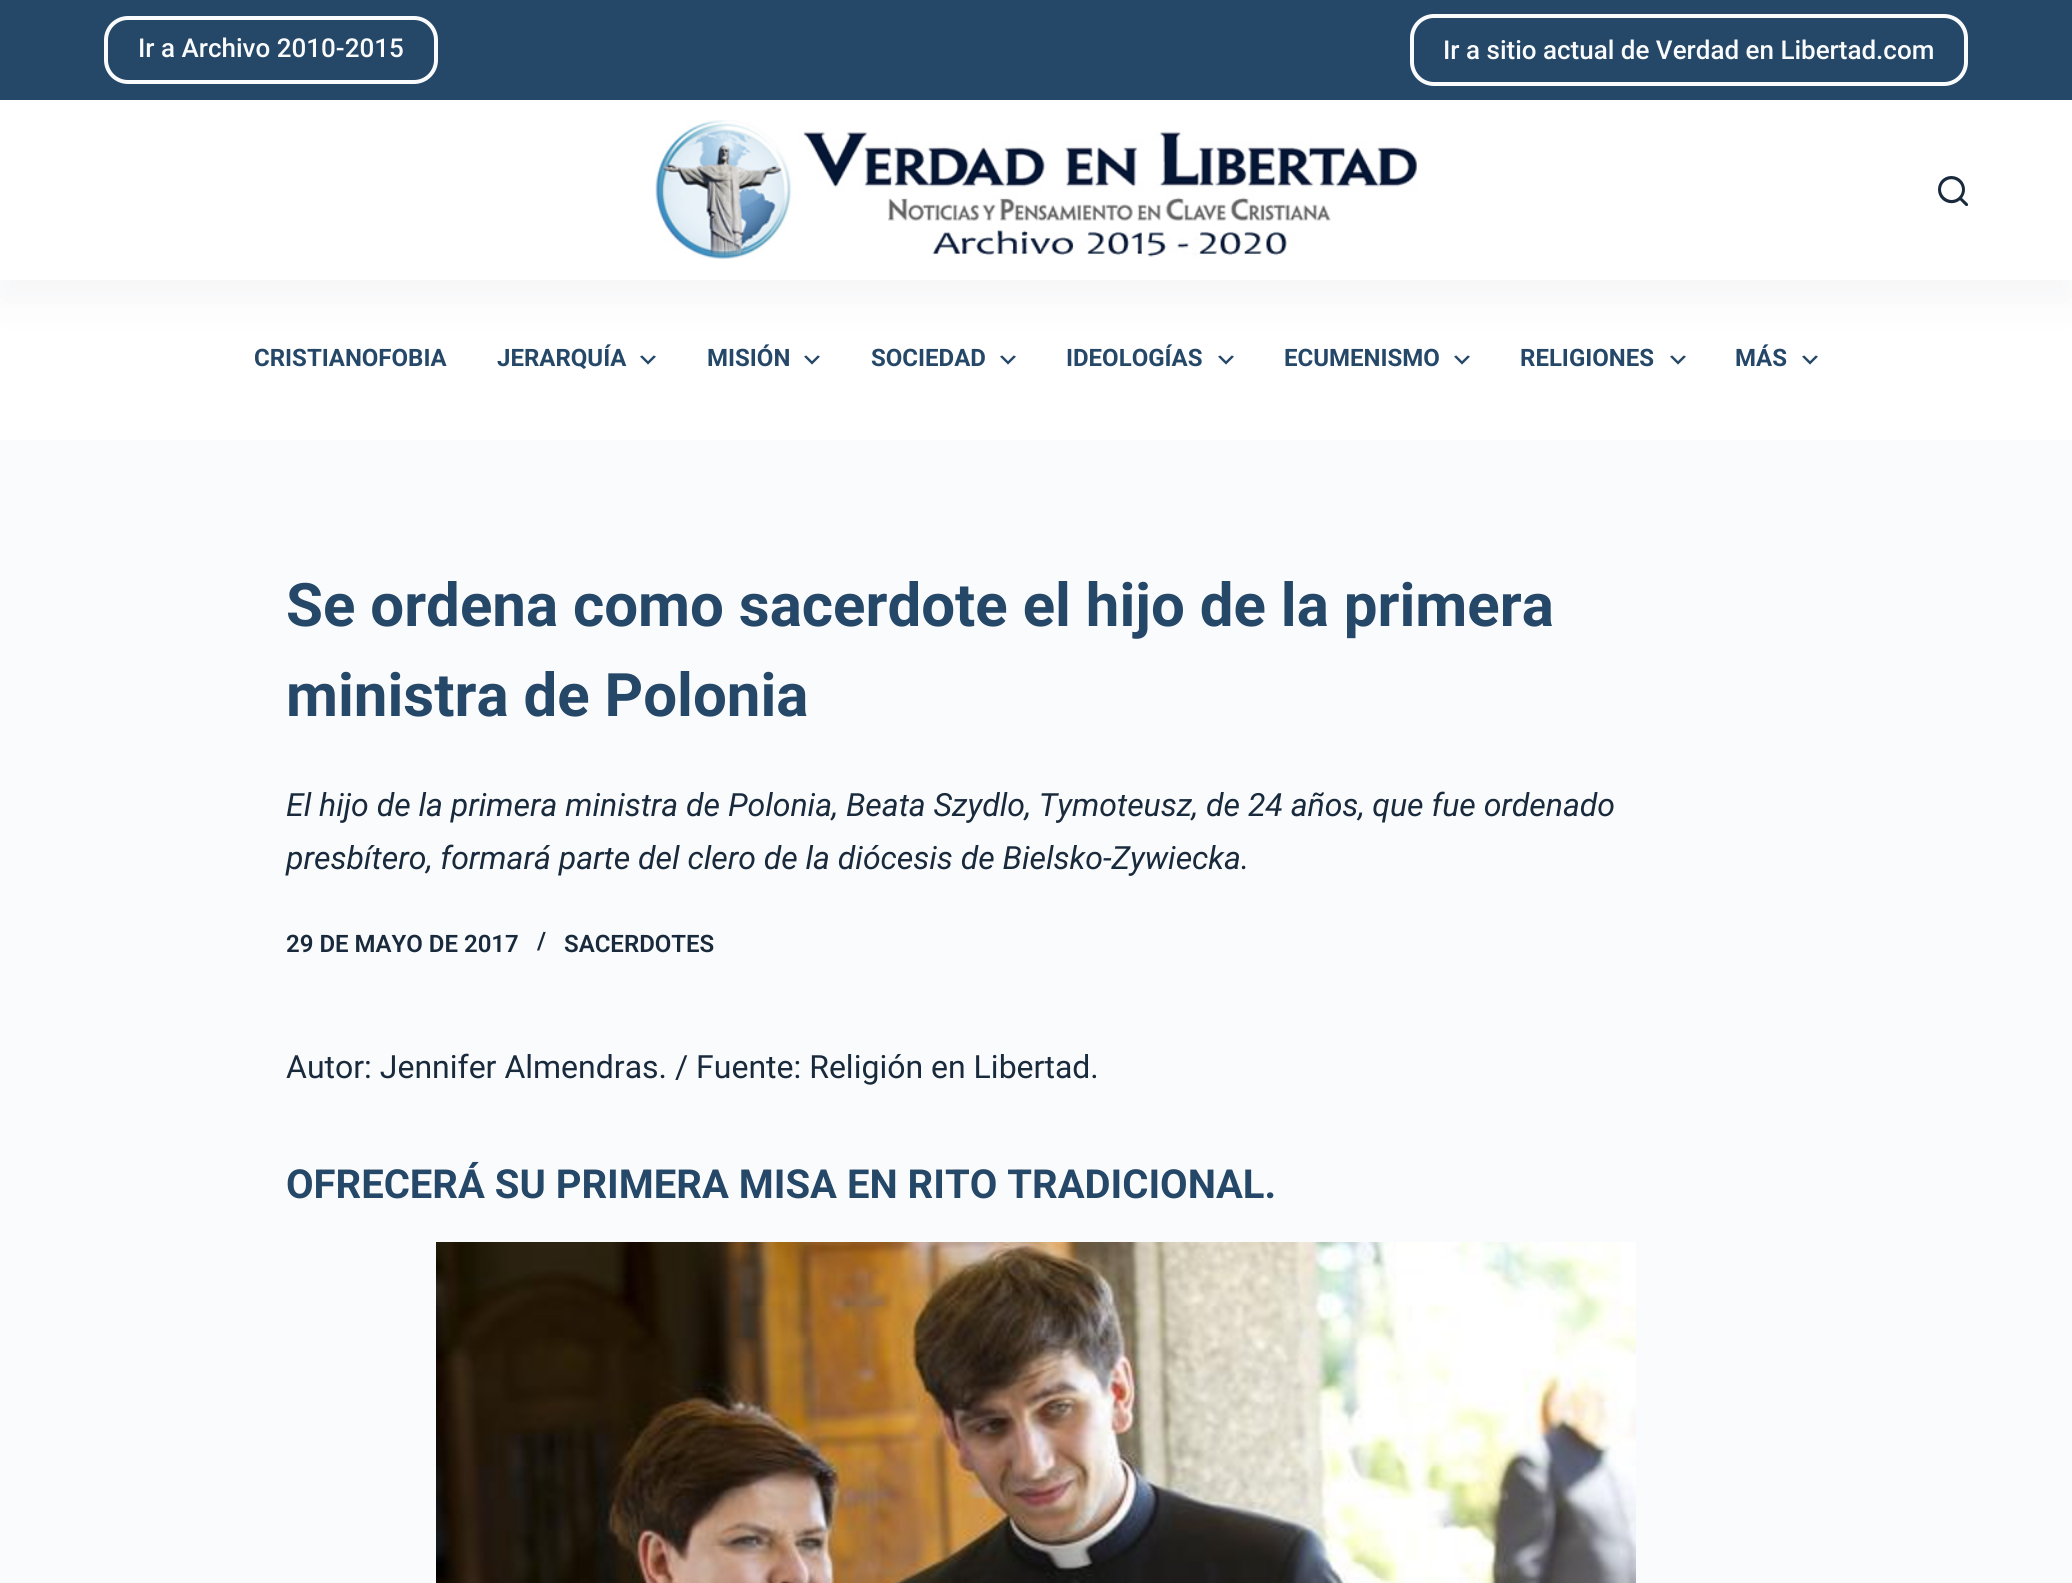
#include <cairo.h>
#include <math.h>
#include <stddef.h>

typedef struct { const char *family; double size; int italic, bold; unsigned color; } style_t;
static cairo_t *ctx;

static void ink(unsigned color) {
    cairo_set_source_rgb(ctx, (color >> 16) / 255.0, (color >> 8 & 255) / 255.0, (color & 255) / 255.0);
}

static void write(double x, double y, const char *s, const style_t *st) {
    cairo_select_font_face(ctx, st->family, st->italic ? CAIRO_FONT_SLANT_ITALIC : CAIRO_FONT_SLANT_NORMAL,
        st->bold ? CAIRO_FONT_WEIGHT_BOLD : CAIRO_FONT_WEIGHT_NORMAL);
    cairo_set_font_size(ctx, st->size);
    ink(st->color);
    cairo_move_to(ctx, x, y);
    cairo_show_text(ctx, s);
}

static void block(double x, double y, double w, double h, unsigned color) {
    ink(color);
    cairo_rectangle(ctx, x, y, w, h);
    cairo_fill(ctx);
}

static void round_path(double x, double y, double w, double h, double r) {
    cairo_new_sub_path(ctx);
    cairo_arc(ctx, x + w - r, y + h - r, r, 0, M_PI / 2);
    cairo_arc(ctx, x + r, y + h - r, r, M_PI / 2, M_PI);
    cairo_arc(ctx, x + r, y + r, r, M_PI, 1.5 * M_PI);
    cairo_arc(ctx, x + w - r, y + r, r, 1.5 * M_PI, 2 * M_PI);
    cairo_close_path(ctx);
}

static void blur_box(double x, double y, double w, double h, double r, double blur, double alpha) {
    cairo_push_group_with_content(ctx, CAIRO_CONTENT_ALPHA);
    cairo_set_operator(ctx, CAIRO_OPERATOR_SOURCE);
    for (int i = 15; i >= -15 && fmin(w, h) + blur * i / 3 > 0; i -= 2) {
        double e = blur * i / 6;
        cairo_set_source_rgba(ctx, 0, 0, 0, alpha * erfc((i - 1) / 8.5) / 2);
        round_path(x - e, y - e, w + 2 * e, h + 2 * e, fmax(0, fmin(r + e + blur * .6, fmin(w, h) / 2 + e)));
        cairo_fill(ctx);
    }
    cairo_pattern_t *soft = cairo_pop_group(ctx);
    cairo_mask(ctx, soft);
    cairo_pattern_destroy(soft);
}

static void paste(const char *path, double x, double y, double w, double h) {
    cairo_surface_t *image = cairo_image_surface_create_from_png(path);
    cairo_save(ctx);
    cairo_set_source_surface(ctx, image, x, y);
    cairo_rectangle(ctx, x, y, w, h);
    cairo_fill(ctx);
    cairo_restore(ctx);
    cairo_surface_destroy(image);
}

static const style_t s1 = {"Roboto Medium", 26, 0, 0, 0xfafbfc};
static const style_t s2 = {"Roboto", 24, 0, 1, 0x254768};
static const style_t s3 = {"Roboto", 60, 0, 1, 0x254768};
static const style_t s4 = {"Roboto", 32, 1, 0, 0x192a3d};
static const style_t s5 = {"Roboto SemiBold", 24, 0, 0, 0x192a3d};
static const style_t s6 = {"Roboto", 32, 0, 0, 0x192a3d};
static const style_t s7 = {"Roboto", 40, 0, 1, 0x254768};

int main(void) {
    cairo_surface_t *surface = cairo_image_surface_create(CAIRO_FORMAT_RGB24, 2072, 1583);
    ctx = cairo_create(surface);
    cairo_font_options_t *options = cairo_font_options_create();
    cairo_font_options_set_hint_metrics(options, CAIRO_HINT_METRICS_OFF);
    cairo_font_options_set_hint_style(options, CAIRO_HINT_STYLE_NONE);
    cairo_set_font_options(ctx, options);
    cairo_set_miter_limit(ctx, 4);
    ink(0xfafbfc);
    cairo_paint(ctx);
    block(0, 280, 2072, 160, 0xffffff);
    paste("pic3.png", 640, 355, 16, 10);
    paste("pic3.png", 804, 355, 16, 10);
    paste("pic3.png", 1000, 355, 16, 10);
    paste("pic3.png", 1218, 355, 16, 10);
    paste("pic3.png", 1454, 355, 16, 10);
    paste("pic3.png", 1670, 355, 16, 10);
    paste("pic3.png", 1802, 355, 16, 10);
    ink(0x2c3e50);
    blur_box(0, 120, 2072, 180, 0, 20, 0.05);
    block(0, 0, 2072, 100, 0x254768);
    round_path(106, 18, 330, 64, 22);
    ink(0xfafbfc);
    cairo_set_line_width(ctx, 4);
    cairo_stroke(ctx);
    write(138, 57, "Ir a Archivo 2010-2015", &s1);
    round_path(1412, 16, 554, 68, 22);
    cairo_stroke(ctx);
    write(1443, 59, "Ir a sitio actual de Verdad en Libertad.com", &s1);
    block(0, 100, 2072, 180, 0xffffff);
    paste("pic1.png", 655, 120, 762, 139);
    paste("pic2.png", 1938, 176, 30, 30);
    write(254, 366, "CRISTIANOFOBIA", &s2);
    write(497, 366, "JERARQUÍA", &s2);
    write(707, 366, "MISIÓN", &s2);
    write(871, 366, "SOCIEDAD", &s2);
    write(1066, 366, "IDEOLOGÍAS", &s2);
    write(1284, 366, "ECUMENISMO", &s2);
    write(1520, 366, "RELIGIONES", &s2);
    write(1735, 366, "MÁS", &s2);
    write(286, 626, "Se ordena como sacerdote el hijo de la primera", &s3);
    write(286, 716, "ministra de Polonia", &s3);
    write(286, 816, "El hijo de la primera ministra de Polonia, Beata Szydlo, Tymoteusz, de 24 años, que fue ordenado", &s4);
    write(286, 869, "presbítero, formará parte del clero de la diócesis de Bielsko-Zywiecka.", &s4);
    write(286, 952, "29 DE MAYO DE 2017", &s5);
    write(537, 949, "/", &s5);
    write(564, 952, "SACERDOTES", &s5);
    write(286, 1078, "Autor: Jennifer Almendras. / Fuente: Religión en Libertad.", &s6);
    write(286, 1198, "OFRECERÁ SU PRIMERA MISA EN RITO TRADICIONAL.", &s7);
    paste("pic4.png", 436, 1242, 1200, 341);
    cairo_surface_write_to_png(surface, "screenshot.png");
    cairo_font_options_destroy(options);
    cairo_destroy(ctx);
    cairo_surface_destroy(surface);
    return 0;
}
